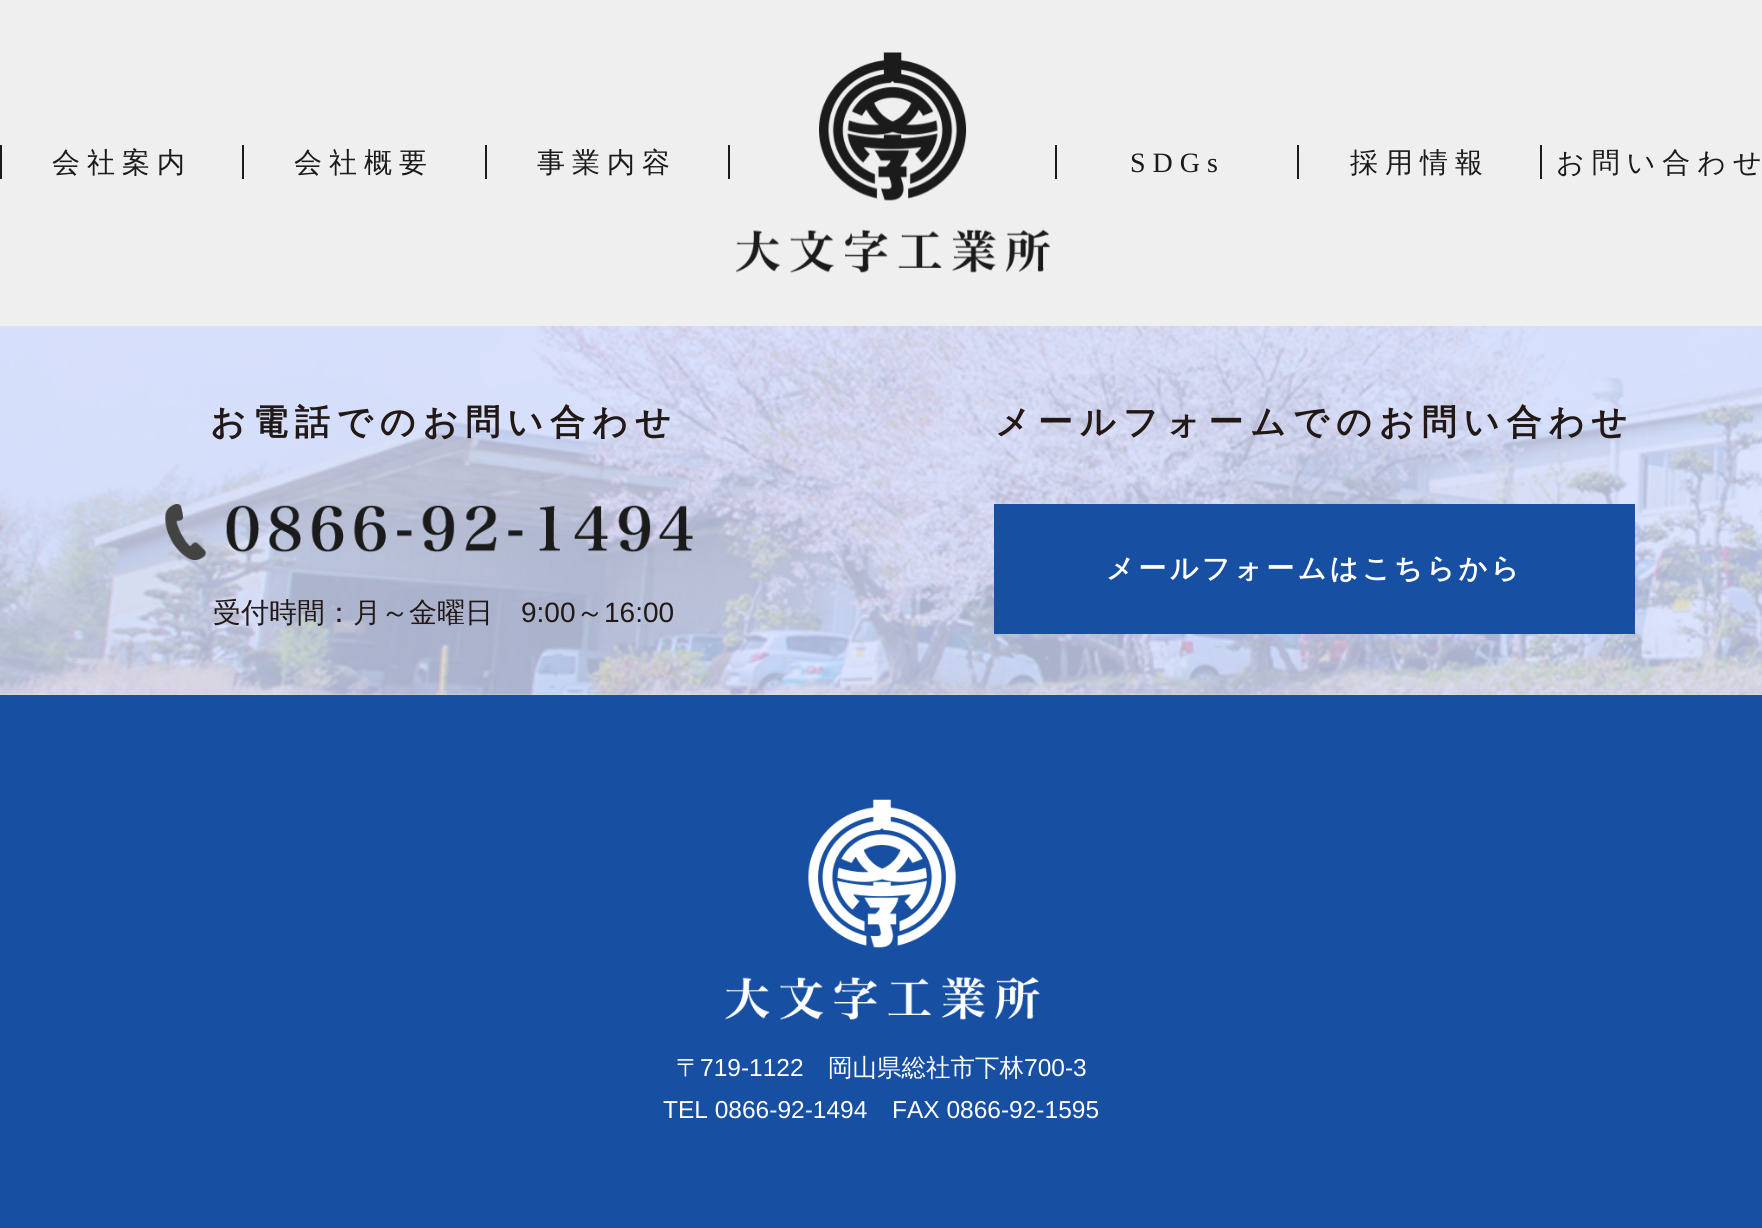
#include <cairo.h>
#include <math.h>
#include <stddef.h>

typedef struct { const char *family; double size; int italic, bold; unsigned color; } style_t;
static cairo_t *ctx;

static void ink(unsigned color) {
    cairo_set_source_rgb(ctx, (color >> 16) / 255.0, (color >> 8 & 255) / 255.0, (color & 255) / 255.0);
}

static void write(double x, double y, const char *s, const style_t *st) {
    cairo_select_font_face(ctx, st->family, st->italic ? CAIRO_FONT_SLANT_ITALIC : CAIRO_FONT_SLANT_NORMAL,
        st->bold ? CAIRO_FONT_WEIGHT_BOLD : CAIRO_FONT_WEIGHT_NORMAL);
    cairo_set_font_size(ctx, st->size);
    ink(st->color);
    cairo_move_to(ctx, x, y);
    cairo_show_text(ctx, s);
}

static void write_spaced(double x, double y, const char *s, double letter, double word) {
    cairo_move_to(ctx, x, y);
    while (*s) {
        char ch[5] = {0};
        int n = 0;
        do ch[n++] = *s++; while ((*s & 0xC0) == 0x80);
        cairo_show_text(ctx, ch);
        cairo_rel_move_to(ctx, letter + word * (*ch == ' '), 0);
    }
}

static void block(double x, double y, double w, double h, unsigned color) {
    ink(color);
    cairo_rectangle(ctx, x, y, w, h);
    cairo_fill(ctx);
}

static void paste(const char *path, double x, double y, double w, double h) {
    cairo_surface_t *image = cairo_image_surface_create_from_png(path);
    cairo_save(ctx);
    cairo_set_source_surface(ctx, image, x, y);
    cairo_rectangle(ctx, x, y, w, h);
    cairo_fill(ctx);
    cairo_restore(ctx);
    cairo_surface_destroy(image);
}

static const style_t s1 = {"WenQuanYi Zen Hei Medium", 28, 0, 0, 0x221815};
static const style_t s2 = {"Liberation Sans", 28, 0, 0, 0x221815};
static const style_t s3 = {"WenQuanYi Zen Hei Medium", 24.5, 0, 0, 0xffffff};
static const style_t s4 = {"Liberation Sans", 24.5, 0, 0, 0xffffff};

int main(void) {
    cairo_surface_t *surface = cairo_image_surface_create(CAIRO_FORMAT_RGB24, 1762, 1228);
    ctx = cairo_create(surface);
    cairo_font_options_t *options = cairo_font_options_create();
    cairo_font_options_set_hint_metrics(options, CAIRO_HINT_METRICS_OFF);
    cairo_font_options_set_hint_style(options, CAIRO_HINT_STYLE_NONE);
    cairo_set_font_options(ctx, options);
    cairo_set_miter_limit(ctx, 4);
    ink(0xffffff);
    cairo_paint(ctx);
    paste("pic1.png", 0, 694, 1762, 1);
    block(0, 0, 1762, 326, 0xefefef);
    block(242, 145, 2, 34, 0x1b1b1b);
    block(0, 145, 2, 34, 0x1b1b1b);
    cairo_select_font_face(ctx, "WenQuanYi Zen Hei Medium", CAIRO_FONT_SLANT_NORMAL, CAIRO_FONT_WEIGHT_NORMAL);
    cairo_set_font_size(ctx, 28);
    write_spaced(52, 172, "会社案内", 7, 0);
    block(485, 145, 2, 34, 0x1b1b1b);
    write_spaced(294, 172, "会社概要", 7, 0);
    block(728, 145, 2, 34, 0x1b1b1b);
    write_spaced(537, 172, "事業内容", 7, 0);
    paste("pic2.png", 736, 52, 314, 221);
    block(1297, 145, 2, 34, 0x1b1b1b);
    block(1055, 145, 2, 34, 0x1b1b1b);
    cairo_select_font_face(ctx, "Liberation Serif", CAIRO_FONT_SLANT_NORMAL, CAIRO_FONT_WEIGHT_NORMAL);
    write_spaced(1130, 172, "SDGs", 7, 0);
    block(1540, 145, 2, 34, 0x1b1b1b);
    cairo_select_font_face(ctx, "WenQuanYi Zen Hei Medium", CAIRO_FONT_SLANT_NORMAL, CAIRO_FONT_WEIGHT_NORMAL);
    write_spaced(1350, 172, "採用情報", 7, 0);
    write_spaced(1556, 172, "お問い合わせ", 7, 0);
    paste("pic3.png", 0, 326, 1762, 369);
    cairo_select_font_face(ctx, "WenQuanYi Zen Hei", CAIRO_FONT_SLANT_NORMAL, CAIRO_FONT_WEIGHT_BOLD);
    cairo_set_font_size(ctx, 35);
    ink(0x221815);
    write_spaced(210, 434, "お電話でのお問い合わせ", 7, 0);
    paste("pic4.png", 165, 504, 528, 56);
    write(213, 622, "受付時間：月～金曜日", &s1);
    write(521, 622, "9:00", &s2);
    write(576, 622, "～", &s1);
    write(604, 622, "16:00", &s2);
    cairo_select_font_face(ctx, "WenQuanYi Zen Hei", CAIRO_FONT_SLANT_NORMAL, CAIRO_FONT_WEIGHT_BOLD);
    cairo_set_font_size(ctx, 35);
    write_spaced(995, 434, "メールフォームでのお問い合わせ", 7, 0);
    block(994, 504, 641, 130, 0x174fa3);
    cairo_set_font_size(ctx, 28);
    ink(0xffffff);
    write_spaced(1106, 578, "メールフォームはこちらから", 3.5, 0);
    block(0, 695, 1762, 533, 0x174fa3);
    paste("pic5.png", 725, 799, 315, 221);
    write(676, 1076, "〒", &s3);
    write(700, 1076, "719-1122", &s4);
    write(828, 1076, "岡山県総社市下林", &s3);
    write(1024, 1076, "700-3", &s4);
    write(663, 1118, "TEL 0866-92-1494", &s4);
    write(892, 1118, "FAX 0866-92-1595", &s4);
    cairo_surface_write_to_png(surface, "screenshot.png");
    cairo_font_options_destroy(options);
    cairo_destroy(ctx);
    cairo_surface_destroy(surface);
    return 0;
}
